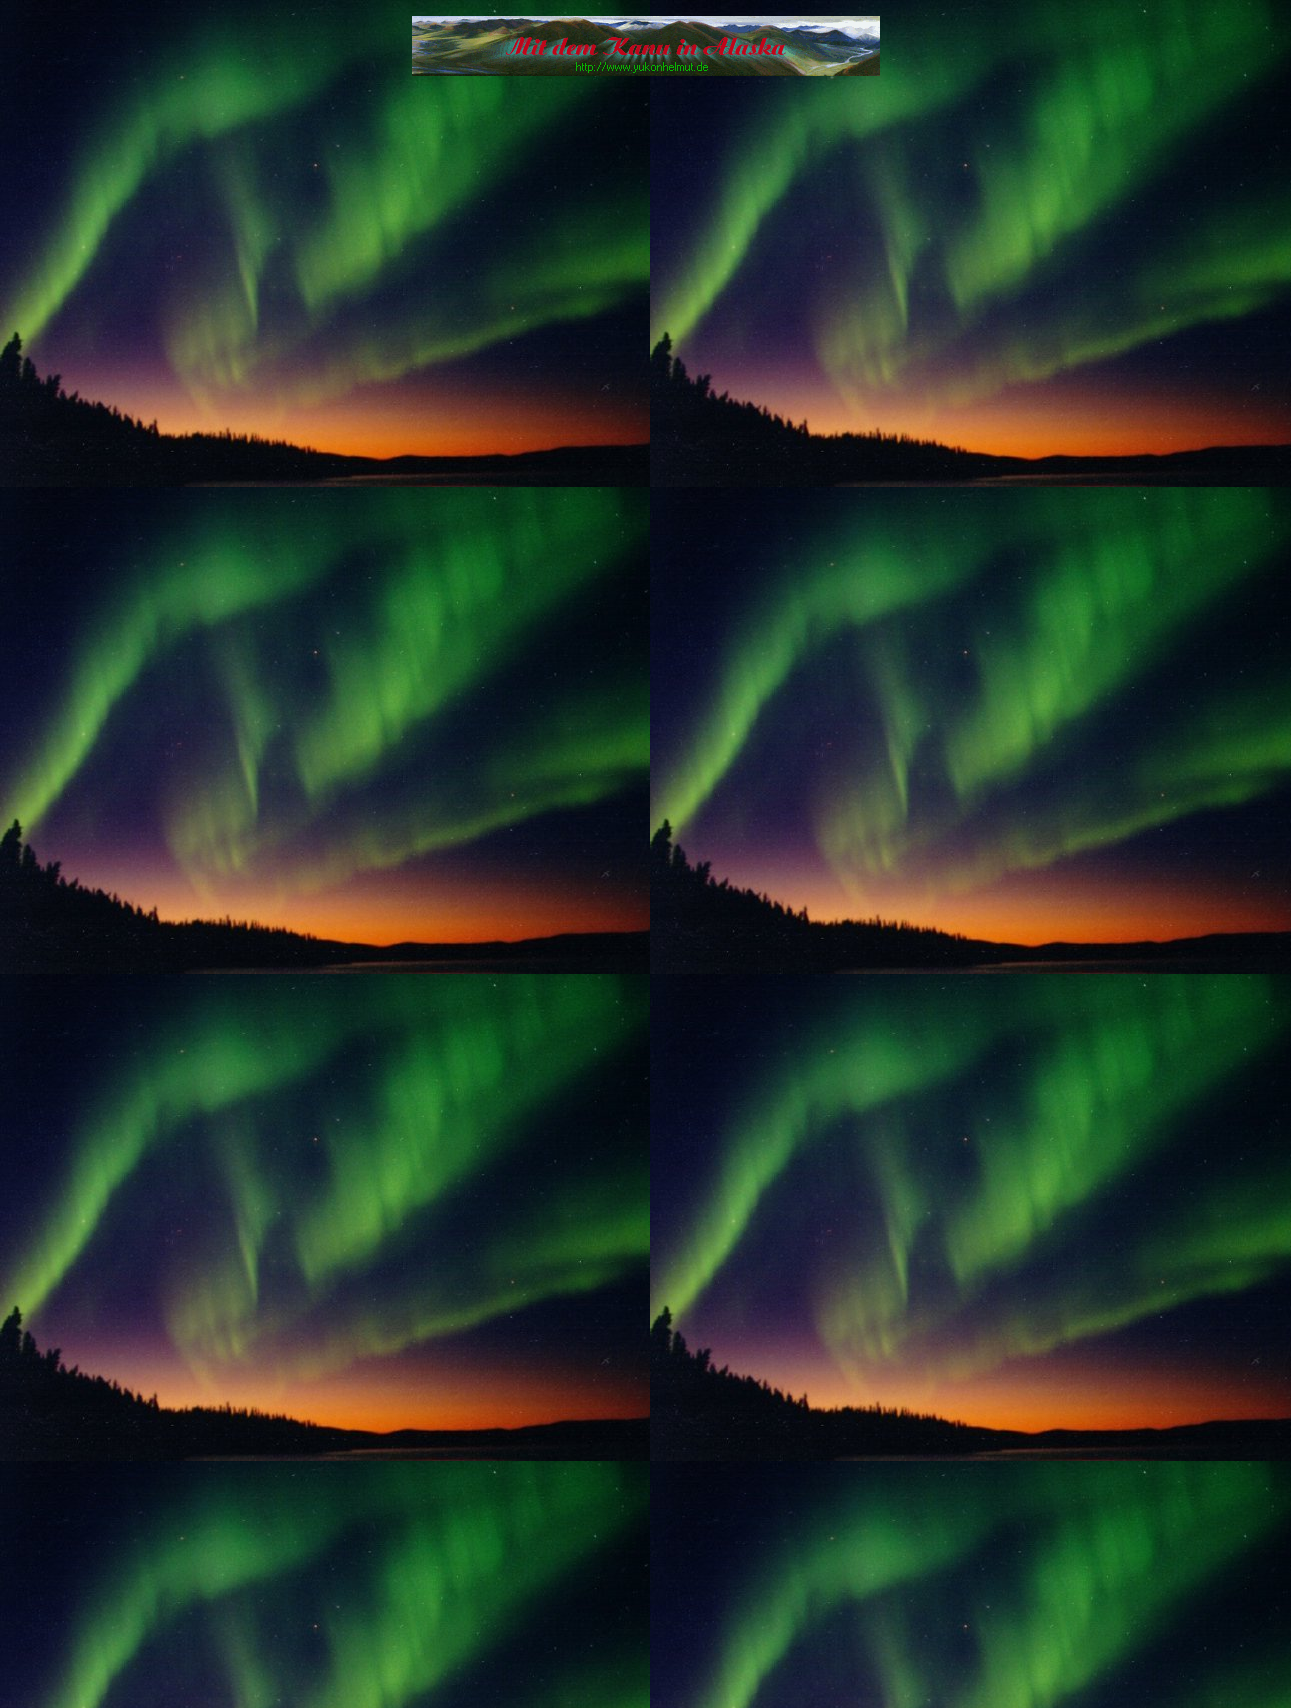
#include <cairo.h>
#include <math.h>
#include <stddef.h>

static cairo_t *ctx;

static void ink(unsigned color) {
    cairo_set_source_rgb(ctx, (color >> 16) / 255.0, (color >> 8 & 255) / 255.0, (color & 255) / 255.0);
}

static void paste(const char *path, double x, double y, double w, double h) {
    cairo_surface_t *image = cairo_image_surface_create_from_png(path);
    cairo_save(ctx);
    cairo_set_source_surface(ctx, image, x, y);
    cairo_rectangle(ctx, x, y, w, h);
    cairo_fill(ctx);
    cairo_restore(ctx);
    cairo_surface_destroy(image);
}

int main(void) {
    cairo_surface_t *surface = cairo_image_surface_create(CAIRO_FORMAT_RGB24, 1291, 1708);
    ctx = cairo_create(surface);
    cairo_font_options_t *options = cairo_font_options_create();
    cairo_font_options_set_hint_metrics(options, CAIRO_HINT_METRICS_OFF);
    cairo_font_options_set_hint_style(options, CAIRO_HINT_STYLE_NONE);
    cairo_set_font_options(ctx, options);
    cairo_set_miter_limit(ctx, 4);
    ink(0xffffff);
    cairo_paint(ctx);
    paste("pic1.png", 0, 0, 1291, 1708);
    paste("pic2.png", 412, 16, 468, 60);
    cairo_surface_write_to_png(surface, "screenshot.png");
    cairo_font_options_destroy(options);
    cairo_destroy(ctx);
    cairo_surface_destroy(surface);
    return 0;
}
